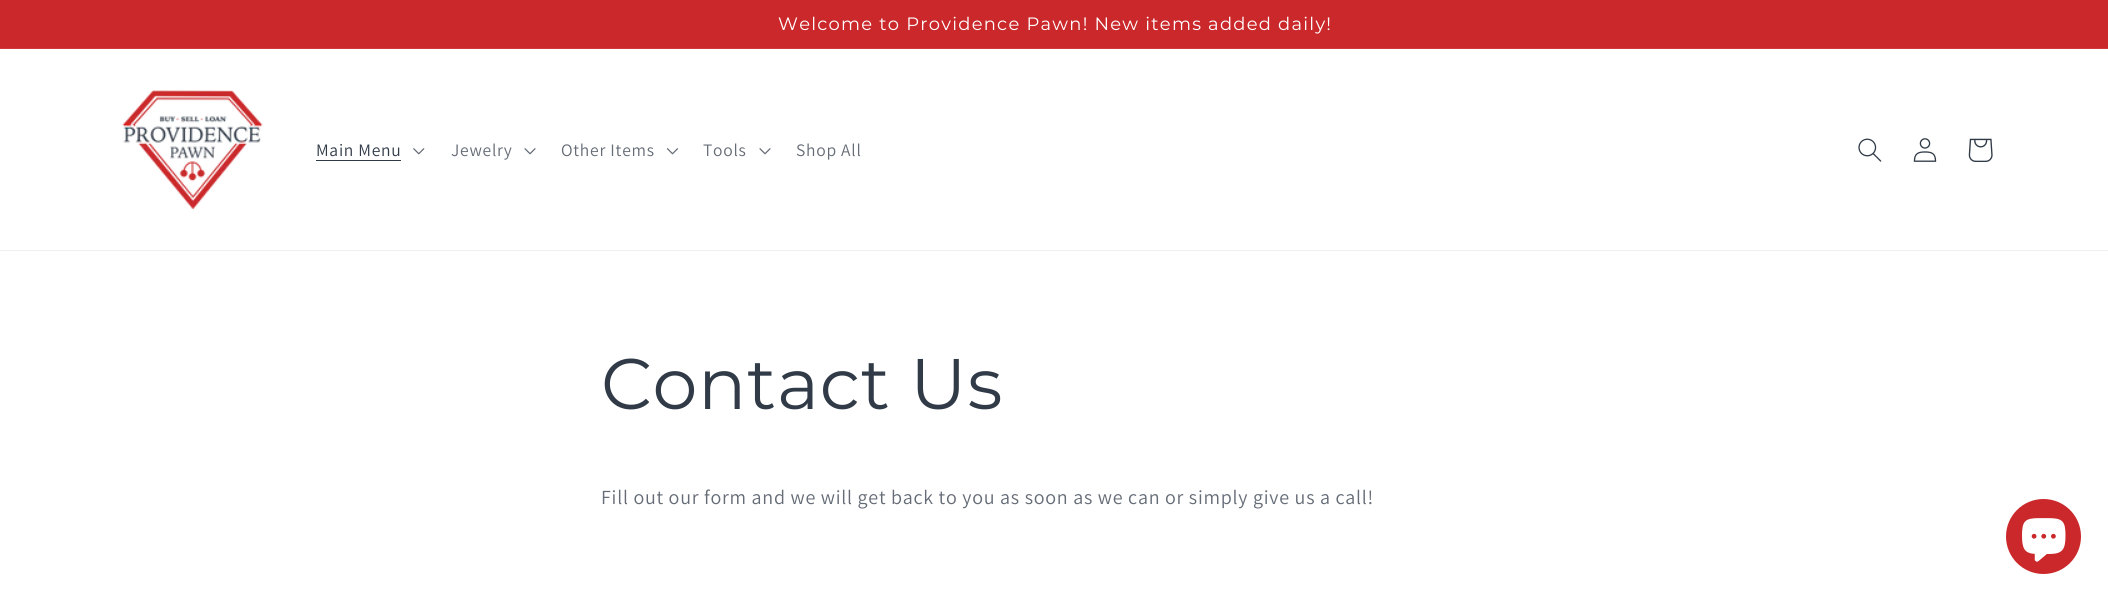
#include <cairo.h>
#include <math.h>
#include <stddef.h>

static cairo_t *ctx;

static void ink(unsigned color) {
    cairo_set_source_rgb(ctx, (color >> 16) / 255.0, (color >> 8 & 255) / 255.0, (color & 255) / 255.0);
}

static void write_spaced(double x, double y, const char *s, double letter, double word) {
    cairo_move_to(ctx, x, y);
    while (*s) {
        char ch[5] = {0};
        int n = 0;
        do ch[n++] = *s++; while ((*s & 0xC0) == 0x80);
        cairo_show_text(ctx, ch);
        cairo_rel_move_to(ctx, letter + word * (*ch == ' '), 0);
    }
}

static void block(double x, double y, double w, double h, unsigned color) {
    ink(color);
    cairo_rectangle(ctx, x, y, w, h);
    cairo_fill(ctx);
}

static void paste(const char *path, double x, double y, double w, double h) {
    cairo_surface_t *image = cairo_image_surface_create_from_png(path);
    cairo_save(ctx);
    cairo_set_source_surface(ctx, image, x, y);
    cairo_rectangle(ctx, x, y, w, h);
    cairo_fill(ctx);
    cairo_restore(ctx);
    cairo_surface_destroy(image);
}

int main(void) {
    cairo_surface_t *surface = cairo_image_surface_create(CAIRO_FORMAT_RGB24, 2108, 600);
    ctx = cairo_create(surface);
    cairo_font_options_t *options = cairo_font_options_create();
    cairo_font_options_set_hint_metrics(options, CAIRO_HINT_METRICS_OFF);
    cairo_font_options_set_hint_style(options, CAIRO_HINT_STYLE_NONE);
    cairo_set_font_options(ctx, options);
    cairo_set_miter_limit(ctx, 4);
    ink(0xffffff);
    cairo_paint(ctx);
    block(0, 0, 2108, 48, 0xcb282b);
    block(0, 48, 2108, 1, 0xcf393c);
    cairo_select_font_face(ctx, "Montserrat", CAIRO_FONT_SLANT_NORMAL, CAIRO_FONT_WEIGHT_NORMAL);
    cairo_set_font_size(ctx, 17.9);
    ink(0xffffff);
    write_spaced(778, 30, "Welcome to Providence Pawn! New items added daily!", 1.25, 0);
    block(0, 250, 2108, 1, 0xefeff0);
    paste("pic1.png", 122, 90, 141, 120);
    cairo_select_font_face(ctx, "Assistant", CAIRO_FONT_SLANT_NORMAL, CAIRO_FONT_WEIGHT_NORMAL);
    cairo_set_font_size(ctx, 17.5);
    ink(0x313b48);
    write_spaced(316, 156, "Main Menu", 0.75, 0);
    block(316, 160, 85, 1, 0x313b48);
    paste("pic2.png", 413, 148, 12, 7);
    ink(0x656c76);
    write_spaced(451, 156, "Jewelry", 0.75, 0);
    paste("pic3.png", 524, 148, 12, 7);
    write_spaced(561, 156, "Other Items", 0.75, 0);
    paste("pic4.png", 666, 148, 13, 7);
    write_spaced(703, 156, "Tools", 0.75, 0);
    paste("pic3.png", 759, 148, 12, 7);
    write_spaced(796, 156, "Shop All", 0.75, 0);
    paste("pic5.png", 1858, 138, 24, 24);
    paste("pic6.png", 1913, 138, 24, 24);
    paste("pic7.png", 1968, 138, 25, 24);
    cairo_select_font_face(ctx, "Montserrat", CAIRO_FONT_SLANT_NORMAL, CAIRO_FONT_WEIGHT_NORMAL);
    cairo_set_font_size(ctx, 71.5);
    ink(0x313b48);
    write_spaced(601, 409, "Contact Us", 0.75, 0);
    cairo_select_font_face(ctx, "Assistant", CAIRO_FONT_SLANT_NORMAL, CAIRO_FONT_WEIGHT_NORMAL);
    cairo_set_font_size(ctx, 20);
    ink(0x656c76);
    write_spaced(601, 504, "Fill out our form and we will get back to you as soon as we can or simply give us a call!", 0.75, 0);
    ink(0xcb282b);
    cairo_new_path(ctx);
    cairo_arc(ctx, 2043.5, 536.5, 37.5, 0, 2 * M_PI);
    cairo_fill(ctx);
    paste("pic8.png", 2022, 518, 44, 44);
    cairo_surface_write_to_png(surface, "screenshot.png");
    cairo_font_options_destroy(options);
    cairo_destroy(ctx);
    cairo_surface_destroy(surface);
    return 0;
}
